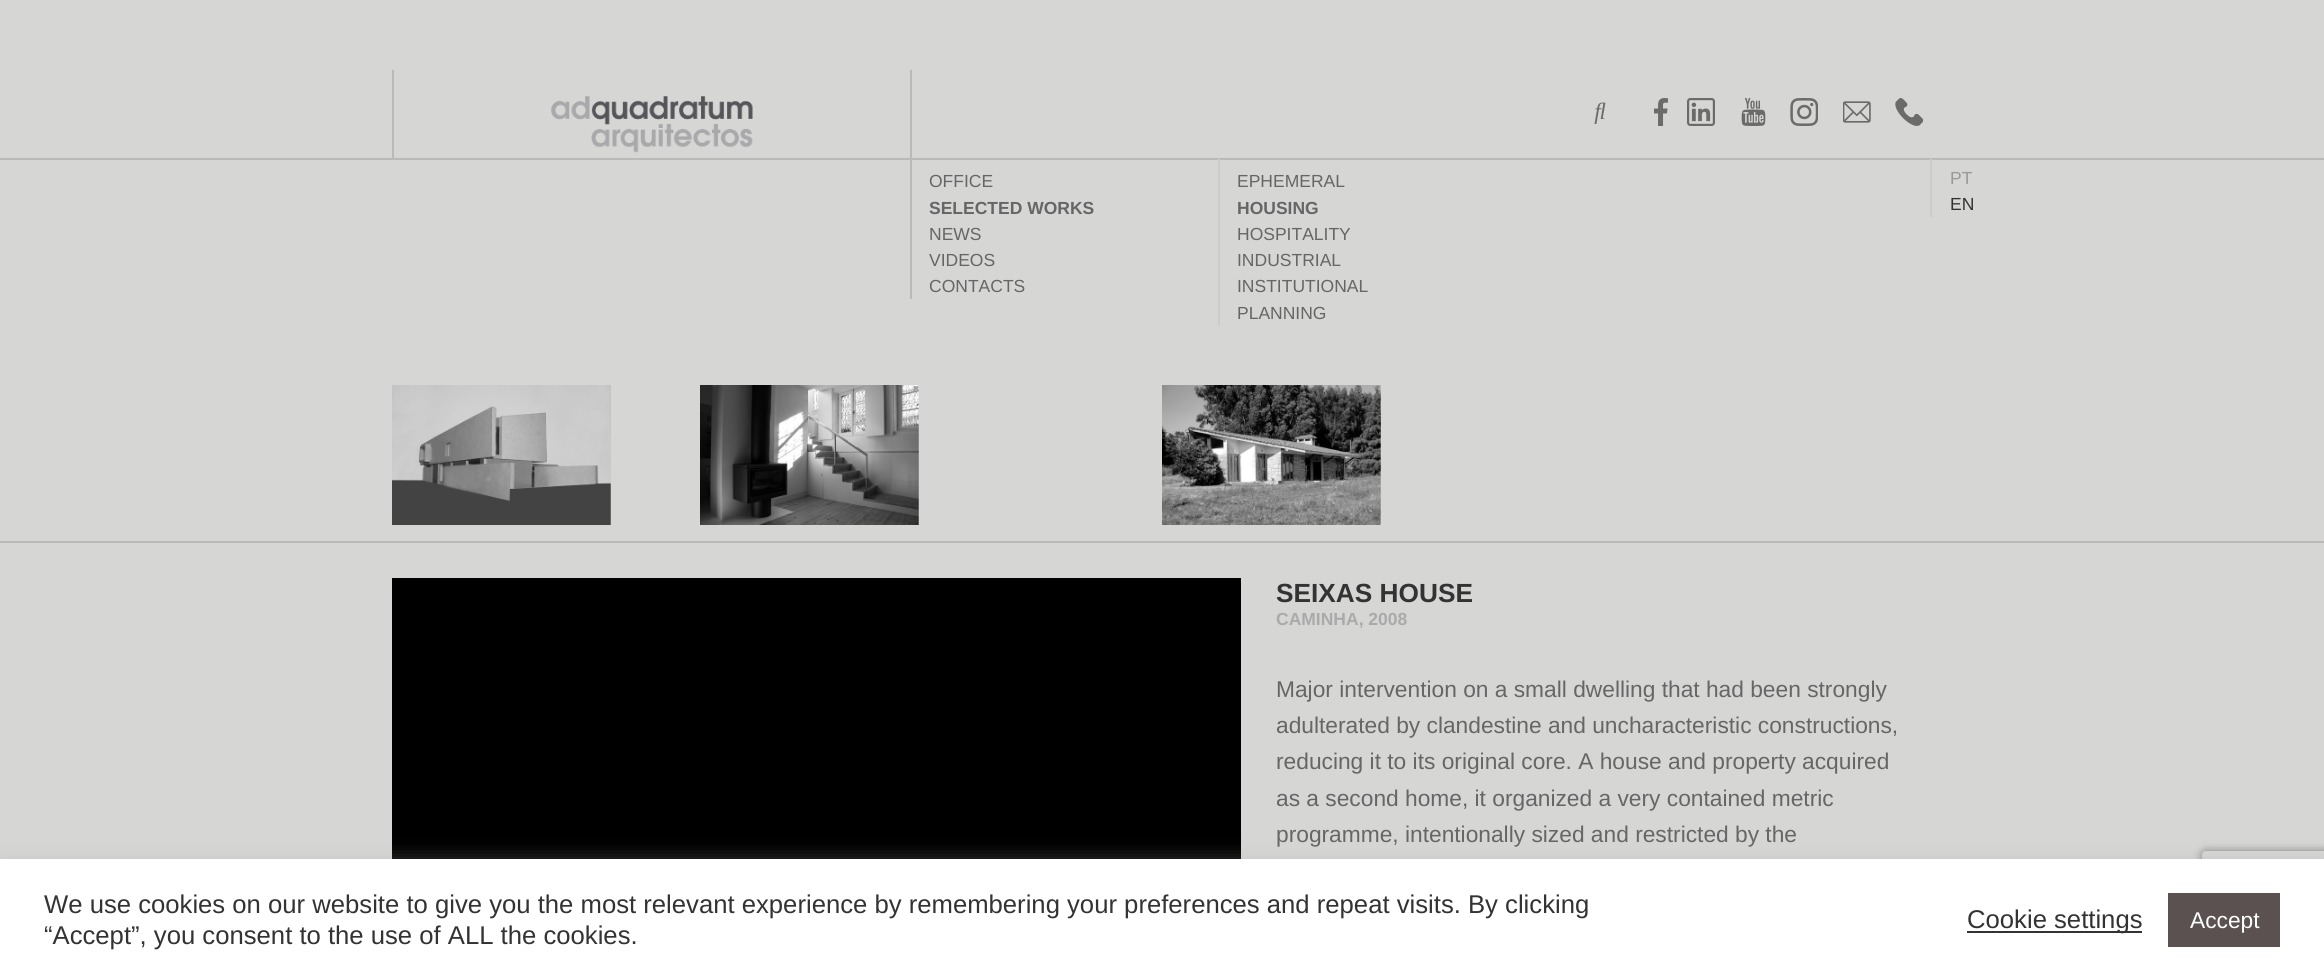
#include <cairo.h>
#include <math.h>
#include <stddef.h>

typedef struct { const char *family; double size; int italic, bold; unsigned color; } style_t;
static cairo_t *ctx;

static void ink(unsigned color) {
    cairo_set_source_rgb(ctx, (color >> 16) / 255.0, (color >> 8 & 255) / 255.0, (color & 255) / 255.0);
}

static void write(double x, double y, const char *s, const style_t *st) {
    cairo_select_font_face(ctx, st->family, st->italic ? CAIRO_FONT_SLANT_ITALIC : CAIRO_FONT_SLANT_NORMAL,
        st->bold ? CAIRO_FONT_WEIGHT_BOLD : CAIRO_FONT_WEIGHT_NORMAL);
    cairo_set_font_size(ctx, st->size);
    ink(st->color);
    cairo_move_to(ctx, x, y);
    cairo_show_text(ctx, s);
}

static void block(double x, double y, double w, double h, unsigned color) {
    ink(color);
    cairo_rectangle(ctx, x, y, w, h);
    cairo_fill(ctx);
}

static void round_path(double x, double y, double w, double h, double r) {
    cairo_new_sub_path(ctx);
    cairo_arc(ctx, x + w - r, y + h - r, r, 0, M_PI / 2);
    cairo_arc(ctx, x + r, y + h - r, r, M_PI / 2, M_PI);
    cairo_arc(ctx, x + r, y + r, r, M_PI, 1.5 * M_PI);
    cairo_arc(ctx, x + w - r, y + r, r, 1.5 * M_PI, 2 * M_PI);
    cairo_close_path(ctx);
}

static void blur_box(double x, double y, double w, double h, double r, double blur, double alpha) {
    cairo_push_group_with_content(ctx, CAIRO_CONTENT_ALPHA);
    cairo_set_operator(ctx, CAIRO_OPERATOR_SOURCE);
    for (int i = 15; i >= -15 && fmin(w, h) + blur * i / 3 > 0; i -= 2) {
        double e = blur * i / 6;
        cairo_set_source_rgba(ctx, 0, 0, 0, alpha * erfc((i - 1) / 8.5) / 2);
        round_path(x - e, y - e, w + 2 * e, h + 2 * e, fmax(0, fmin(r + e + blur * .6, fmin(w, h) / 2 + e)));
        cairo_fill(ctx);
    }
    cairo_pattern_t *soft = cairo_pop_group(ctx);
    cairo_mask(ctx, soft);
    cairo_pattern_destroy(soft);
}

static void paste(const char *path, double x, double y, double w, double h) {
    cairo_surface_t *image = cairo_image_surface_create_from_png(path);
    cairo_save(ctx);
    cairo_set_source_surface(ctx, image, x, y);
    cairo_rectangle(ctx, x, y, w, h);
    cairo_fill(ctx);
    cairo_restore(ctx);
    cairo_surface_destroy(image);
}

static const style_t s1 = {"Liberation Sans", 17.5, 0, 1, 0x666666};
static const style_t s2 = {"Liberation Sans", 17.5, 0, 0, 0x666666};
static const style_t s3 = {"Liberation Sans", 17.5, 0, 0, 0x999999};
static const style_t s4 = {"Liberation Sans", 17.5, 0, 0, 0x333333};
static const style_t s5 = {"Liberation Sans", 26.25, 0, 1, 0x333333};
static const style_t s6 = {"Liberation Sans", 17.5, 0, 1, 0xaaaaaa};
static const style_t s7 = {"Liberation Sans", 22.75, 0, 0, 0x666666};
static const style_t s8 = {"Liberation Sans", 25.67, 0, 0, 0x333333};
static const style_t s9 = {"Liberation Sans", 22.75, 0, 0, 0xffffff};

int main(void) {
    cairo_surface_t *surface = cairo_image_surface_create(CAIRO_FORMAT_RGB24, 2324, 980);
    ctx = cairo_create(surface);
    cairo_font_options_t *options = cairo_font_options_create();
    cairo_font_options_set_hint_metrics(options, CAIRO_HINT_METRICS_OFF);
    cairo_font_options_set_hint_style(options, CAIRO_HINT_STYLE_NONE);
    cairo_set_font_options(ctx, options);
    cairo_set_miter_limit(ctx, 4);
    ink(0xd6d6d5);
    cairo_paint(ctx);
    block(0, 158, 2324, 2, 0xbbbab9);
    block(910, 70, 2, 88, 0xbbbab9);
    block(392, 70, 2, 88, 0xbbbab9);
    paste("pic1.png", 551, 96, 202, 57);
    paste("pic2.png", 1594, 102, 12, 22);
    paste("pic3.png", 1654, 98, 14, 28);
    paste("pic4.png", 1687, 98, 28, 28);
    paste("pic5.png", 1741, 98, 25, 28);
    paste("pic6.png", 1790, 98, 28, 28);
    paste("pic7.png", 1843, 101, 28, 22);
    paste("pic8.png", 1895, 98, 28, 28);
    block(910, 159, 2, 140, 0xbbbab9);
    write(929, 214, "SELECTED WORKS", &s1);
    block(1218, 159, 2, 167, 0xcccccc);
    write(1237, 187, "EPHEMERAL", &s2);
    write(1237, 214, "HOUSING", &s1);
    write(1237, 240, "HOSPITALITY", &s2);
    write(1237, 266, "INDUSTRIAL", &s2);
    write(1237, 292, "INSTITUTIONAL", &s2);
    write(1237, 319, "PLANNING", &s2);
    write(929, 187, "OFFICE", &s2);
    write(929, 240, "NEWS", &s2);
    write(929, 266, "VIDEOS", &s2);
    write(929, 292, "CONTACTS", &s2);
    block(1930, 159, 2, 58, 0xcccccc);
    write(1950, 184, "PT", &s3);
    write(1950, 210, "EN", &s4);
    block(0, 541, 2324, 2, 0xbbbab9);
    paste("pic9.png", 392, 385, 219, 140);
    paste("pic10.png", 700, 385, 219, 140);
    paste("pic11.png", 1162, 385, 219, 140);
    block(392, 578, 849, 281, 0x000000);
    write(1276, 602, "SEIXAS HOUSE", &s5);
    write(1276, 625, "CAMINHA, 2008", &s6);
    write(1276, 697, "Major intervention on a small dwelling that had been strongly", &s7);
    write(1276, 733, "adulterated by clandestine and uncharacteristic constructions,", &s7);
    write(1276, 769, "reducing it to its original core. A house and property acquired", &s7);
    write(1276, 806, "as a second home, it organized a very contained metric", &s7);
    write(1276, 842, "programme, intentionally sized and restricted by the", &s7);
    cairo_save(ctx);
    cairo_set_fill_rule(ctx, CAIRO_FILL_RULE_EVEN_ODD);
    cairo_new_path(ctx);
    cairo_move_to(ctx, 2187, 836);
    cairo_line_to(ctx, 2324, 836);
    cairo_line_to(ctx, 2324, 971);
    cairo_line_to(ctx, 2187, 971);
    cairo_close_path(ctx);
    cairo_move_to(ctx, 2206, 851);
    cairo_line_to(ctx, 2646, 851);
    cairo_curve_to(ctx, 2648, 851, 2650, 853, 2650, 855);
    cairo_line_to(ctx, 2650, 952);
    cairo_curve_to(ctx, 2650, 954, 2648, 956, 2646, 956);
    cairo_line_to(ctx, 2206, 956);
    cairo_curve_to(ctx, 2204, 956, 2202, 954, 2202, 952);
    cairo_line_to(ctx, 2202, 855);
    cairo_curve_to(ctx, 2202, 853, 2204, 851, 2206, 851);
    cairo_close_path(ctx);
    cairo_clip(ctx);
    ink(0x808080);
    blur_box(2202, 851, 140, 105, 4, 4.5, 1);
    cairo_restore(ctx);
    ink(0xacabab);
    blur_box(0, 858, 2324, 120, 0, 9, 0.3);
    block(0, 859, 2324, 121, 0xffffff);
    write(44, 913, "We use cookies on our website to give you the most relevant experience by remembering your preferences and repeat visits. By clicking", &s8);
    write(44, 944, "“Accept”, you consent to the use of ALL the cookies.", &s8);
    block(1967, 931, 175, 2, 0x333333);
    write(1967, 928, "Cookie settings", &s8);
    block(2168, 893, 112, 54, 0x5b5151);
    write(2190, 928, "Accept", &s9);
    cairo_surface_write_to_png(surface, "screenshot.png");
    cairo_font_options_destroy(options);
    cairo_destroy(ctx);
    cairo_surface_destroy(surface);
    return 0;
}
